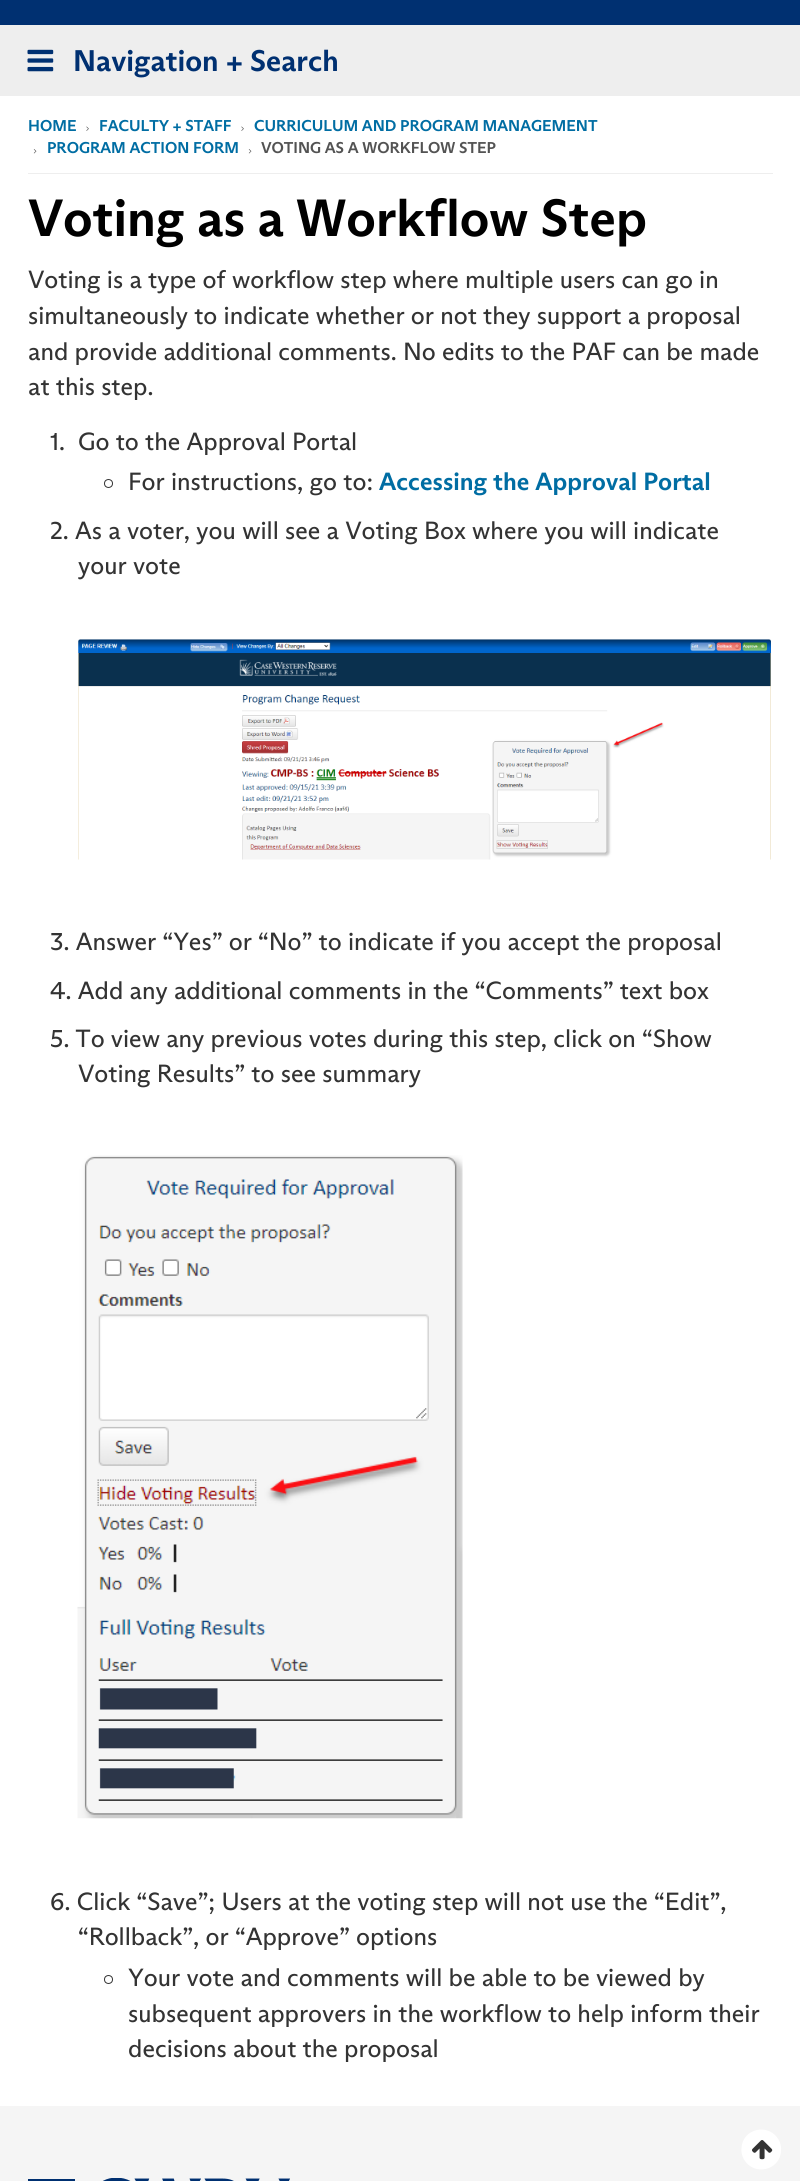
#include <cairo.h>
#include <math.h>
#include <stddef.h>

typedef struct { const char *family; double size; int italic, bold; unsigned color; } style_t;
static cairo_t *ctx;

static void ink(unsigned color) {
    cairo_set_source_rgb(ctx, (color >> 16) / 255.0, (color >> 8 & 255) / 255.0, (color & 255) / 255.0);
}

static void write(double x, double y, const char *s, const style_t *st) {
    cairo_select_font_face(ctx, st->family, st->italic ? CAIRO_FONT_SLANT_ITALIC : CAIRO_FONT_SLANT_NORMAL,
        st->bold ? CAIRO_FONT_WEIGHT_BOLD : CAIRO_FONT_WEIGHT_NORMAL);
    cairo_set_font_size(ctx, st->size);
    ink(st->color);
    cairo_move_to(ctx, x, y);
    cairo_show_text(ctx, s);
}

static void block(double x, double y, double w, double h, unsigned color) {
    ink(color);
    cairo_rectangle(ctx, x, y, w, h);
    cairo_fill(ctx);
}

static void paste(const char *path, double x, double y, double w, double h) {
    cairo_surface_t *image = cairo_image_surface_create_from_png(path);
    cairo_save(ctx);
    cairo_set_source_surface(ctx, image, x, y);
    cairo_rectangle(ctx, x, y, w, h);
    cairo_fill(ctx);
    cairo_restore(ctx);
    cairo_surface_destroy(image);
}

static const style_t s1 = {"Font", 30, 0, 1, 0x003071};
static const style_t s2 = {"Font", 15.75, 0, 1, 0x006da3};
static const style_t s3 = {"Font", 15.75, 0, 1, 0x535353};
static const style_t s4 = {"Font", 52.5, 0, 1, 0x000000};
static const style_t s5 = {"Font", 25, 0, 0, 0x333333};
static const style_t s6 = {"Font", 25, 0, 1, 0x006da3};

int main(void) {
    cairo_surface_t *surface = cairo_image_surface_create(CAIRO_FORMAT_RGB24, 800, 2181);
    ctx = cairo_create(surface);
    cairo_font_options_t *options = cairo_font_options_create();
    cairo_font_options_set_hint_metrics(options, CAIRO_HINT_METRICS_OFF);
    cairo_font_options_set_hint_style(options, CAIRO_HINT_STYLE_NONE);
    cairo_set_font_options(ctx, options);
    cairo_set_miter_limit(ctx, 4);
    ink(0xf5f5f5);
    cairo_paint(ctx);
    block(0, 0, 800, 25, 0x003071);
    block(0, 25, 800, 71, 0xeeeeee);
    paste("pic1.png", 27, 49, 27, 23);
    write(73, 71, "Navigation + Search", &s1);
    block(0, 96, 800, 2010, 0xffffff);
    block(28, 173, 745, 1, 0xeeeeee);
    write(28, 131, "HOME", &s2);
    paste("pic2.png", 86, 126, 3, 5);
    write(99, 131, "FACULTY + STAFF", &s2);
    paste("pic2.png", 241, 126, 3, 5);
    write(254, 131, "CURRICULUM AND PROGRAM MANAGEMENT", &s2);
    paste("pic3.png", 33, 149, 4, 5);
    write(47, 153, "PROGRAM ACTION FORM", &s2);
    paste("pic3.png", 248, 149, 4, 5);
    write(261, 153, "VOTING AS A WORKFLOW STEP", &s3);
    write(28, 236, "Voting as a Workflow Step", &s4);
    write(28, 288, "Voting is a type of workflow step where multiple users can go in", &s5);
    write(28, 324, "simultaneously to indicate whether or not they support a proposal", &s5);
    write(28, 360, "and provide additional comments. No edits to the PAF can be made", &s5);
    write(28, 395, "at this step.", &s5);
    write(50, 450, "1.", &s5);
    write(78, 450, "Go to the Approval Portal", &s5);
    cairo_new_path(ctx);
    cairo_arc(ctx, 108.5, 483.5, 4, 0, 2 * M_PI);
    cairo_set_line_width(ctx, 1);
    cairo_stroke(ctx);
    write(128, 490, "For instructions, go to:", &s5);
    write(379, 490, "Accessing the Approval Portal", &s6);
    write(50, 539, "2. As a voter, you will see a Voting Box where you will indicate", &s5);
    write(78, 574, "your vote", &s5);
    paste("pic4.png", 78, 639, 693, 221);
    write(50, 950, "3. Answer “Yes” or “No” to indicate if you accept the proposal", &s5);
    write(50, 999, "4. Add any additional comments in the “Comments” text box", &s5);
    write(50, 1047, "5. To view any previous votes during this step, click on “Show", &s5);
    write(78, 1082, "Voting Results” to see summary", &s5);
    paste("pic5.png", 77, 1155, 386, 664);
    write(50, 1910, "6. Click “Save”; Users at the voting step will not use the “Edit”,", &s5);
    write(78, 1945, "“Rollback”, or “Approve” options", &s5);
    cairo_new_path(ctx);
    cairo_arc(ctx, 108.5, 1979.5, 4, 0, 2 * M_PI);
    cairo_stroke(ctx);
    write(128, 1986, "Your vote and comments will be able to be viewed by", &s5);
    write(128, 2022, "subsequent approvers in the workflow to help inform their", &s5);
    write(128, 2057, "decisions about the proposal", &s5);
    ink(0xffffff);
    cairo_new_path(ctx);
    cairo_move_to(ctx, 778.5, 2139.5);
    cairo_curve_to(ctx, 780.5, 2143, 781.5, 2147, 781, 2151);
    cairo_curve_to(ctx, 780, 2170.5, 754, 2176.5, 744, 2159.5);
    cairo_curve_to(ctx, 742, 2156, 741, 2152, 741.5, 2148);
    cairo_curve_to(ctx, 742.5, 2128.5, 768.5, 2122.5, 778.5, 2139.5);
    cairo_close_path(ctx);
    cairo_fill(ctx);
    paste("pic6.png", 752, 2140, 21, 20);
    paste("pic7.png", 28, 2178, 262, 3);
    cairo_surface_write_to_png(surface, "screenshot.png");
    cairo_font_options_destroy(options);
    cairo_destroy(ctx);
    cairo_surface_destroy(surface);
    return 0;
}
